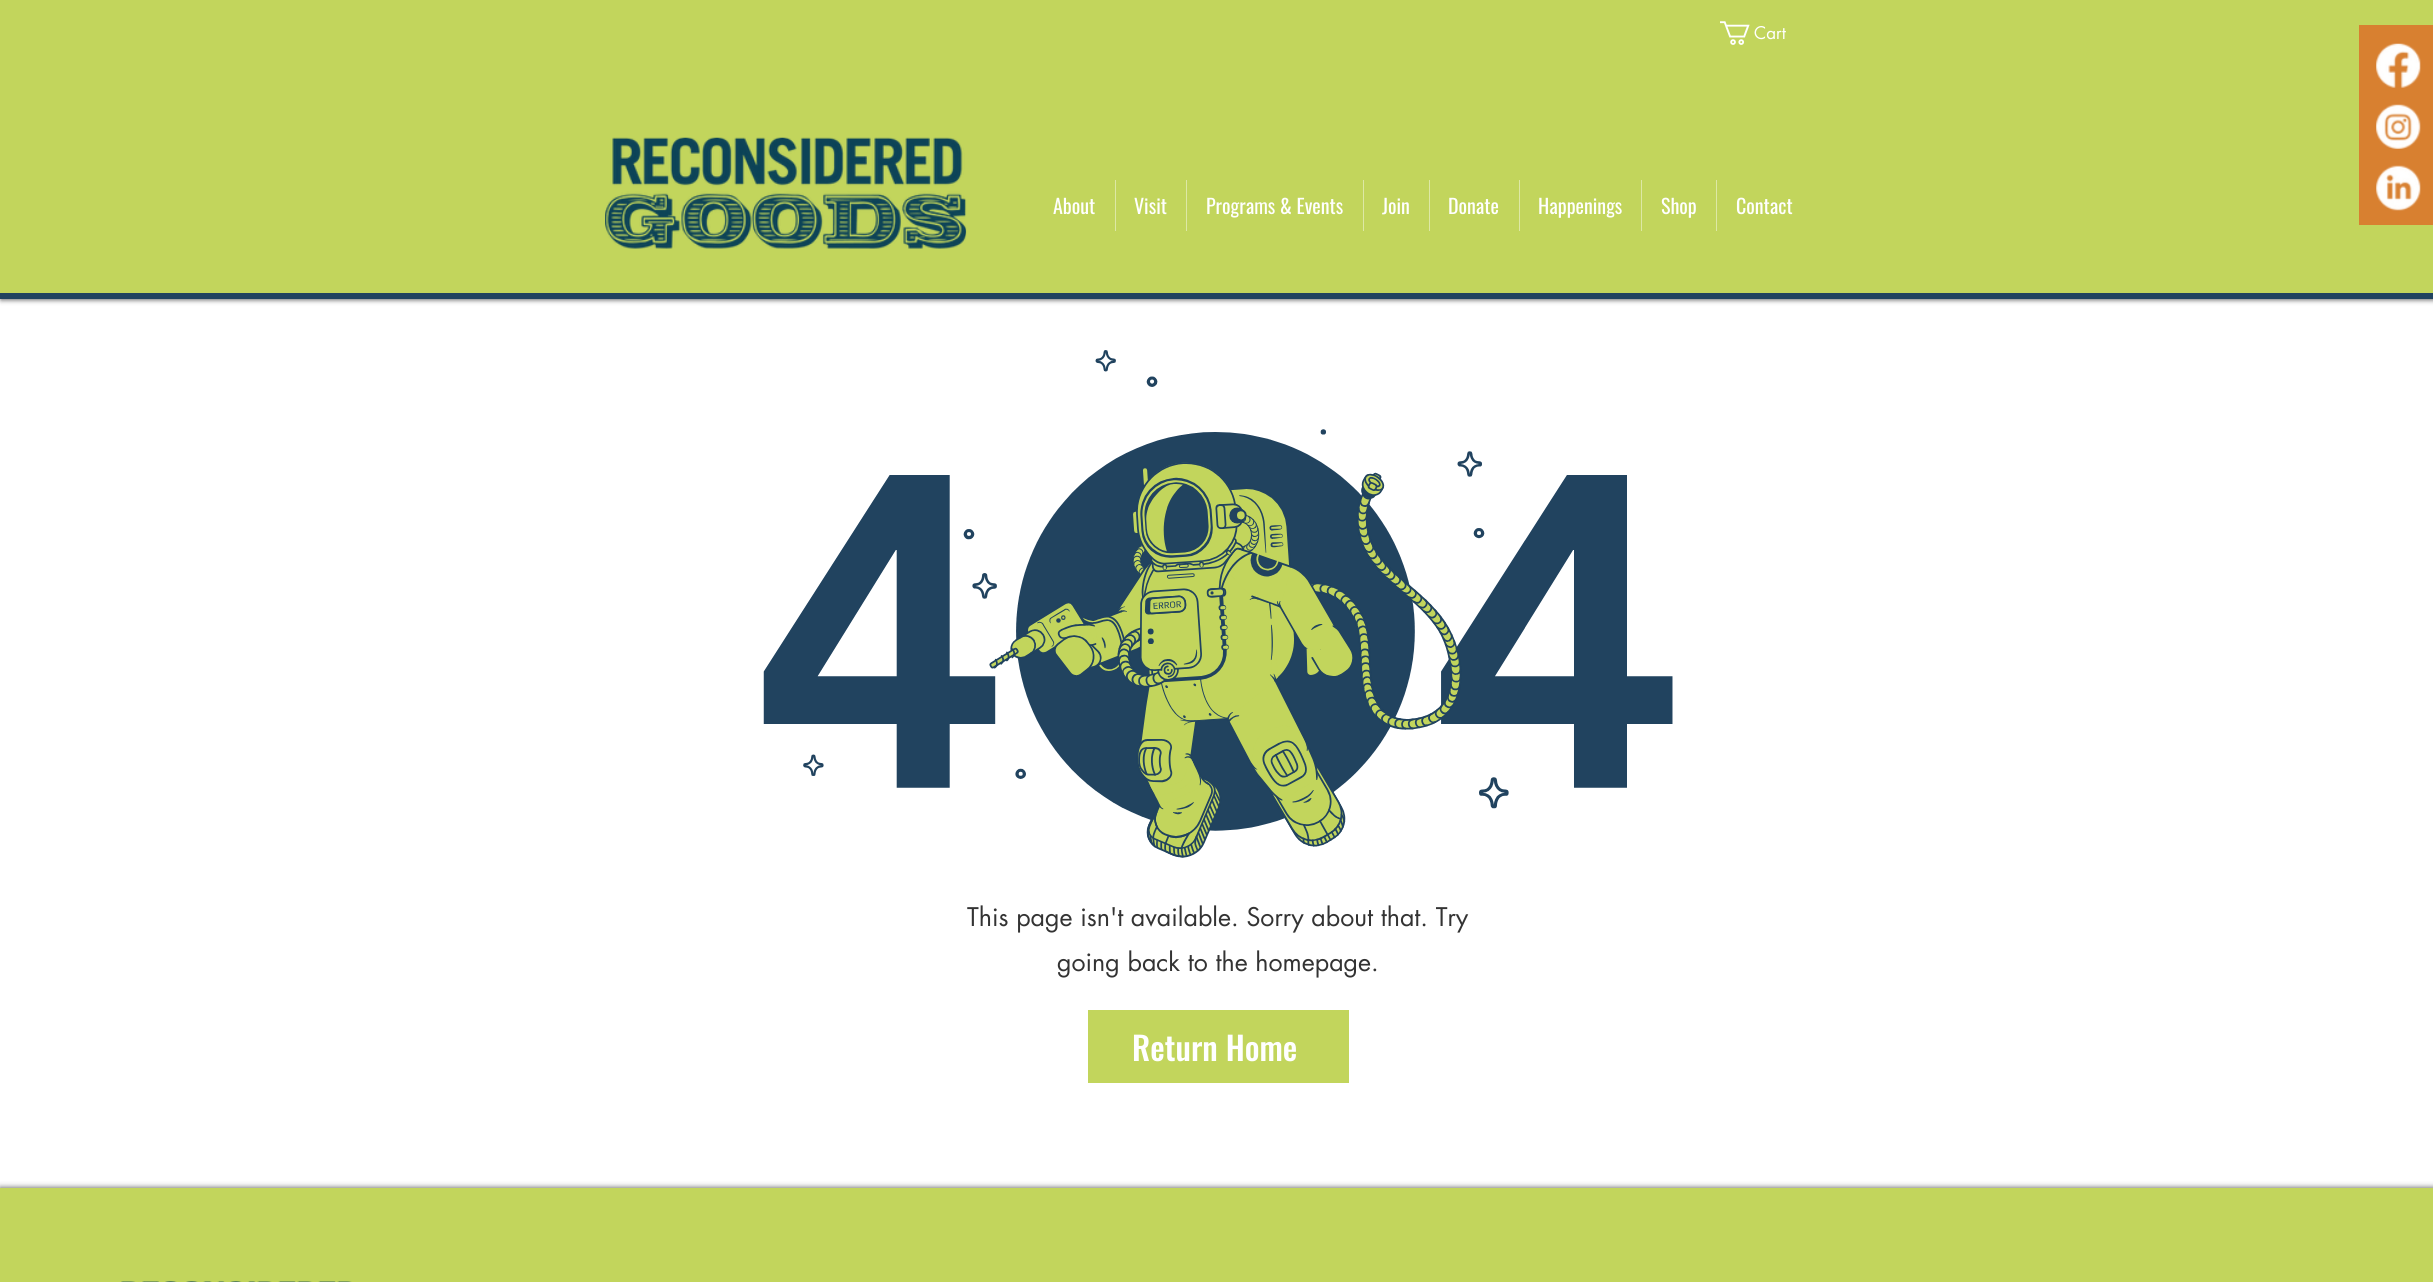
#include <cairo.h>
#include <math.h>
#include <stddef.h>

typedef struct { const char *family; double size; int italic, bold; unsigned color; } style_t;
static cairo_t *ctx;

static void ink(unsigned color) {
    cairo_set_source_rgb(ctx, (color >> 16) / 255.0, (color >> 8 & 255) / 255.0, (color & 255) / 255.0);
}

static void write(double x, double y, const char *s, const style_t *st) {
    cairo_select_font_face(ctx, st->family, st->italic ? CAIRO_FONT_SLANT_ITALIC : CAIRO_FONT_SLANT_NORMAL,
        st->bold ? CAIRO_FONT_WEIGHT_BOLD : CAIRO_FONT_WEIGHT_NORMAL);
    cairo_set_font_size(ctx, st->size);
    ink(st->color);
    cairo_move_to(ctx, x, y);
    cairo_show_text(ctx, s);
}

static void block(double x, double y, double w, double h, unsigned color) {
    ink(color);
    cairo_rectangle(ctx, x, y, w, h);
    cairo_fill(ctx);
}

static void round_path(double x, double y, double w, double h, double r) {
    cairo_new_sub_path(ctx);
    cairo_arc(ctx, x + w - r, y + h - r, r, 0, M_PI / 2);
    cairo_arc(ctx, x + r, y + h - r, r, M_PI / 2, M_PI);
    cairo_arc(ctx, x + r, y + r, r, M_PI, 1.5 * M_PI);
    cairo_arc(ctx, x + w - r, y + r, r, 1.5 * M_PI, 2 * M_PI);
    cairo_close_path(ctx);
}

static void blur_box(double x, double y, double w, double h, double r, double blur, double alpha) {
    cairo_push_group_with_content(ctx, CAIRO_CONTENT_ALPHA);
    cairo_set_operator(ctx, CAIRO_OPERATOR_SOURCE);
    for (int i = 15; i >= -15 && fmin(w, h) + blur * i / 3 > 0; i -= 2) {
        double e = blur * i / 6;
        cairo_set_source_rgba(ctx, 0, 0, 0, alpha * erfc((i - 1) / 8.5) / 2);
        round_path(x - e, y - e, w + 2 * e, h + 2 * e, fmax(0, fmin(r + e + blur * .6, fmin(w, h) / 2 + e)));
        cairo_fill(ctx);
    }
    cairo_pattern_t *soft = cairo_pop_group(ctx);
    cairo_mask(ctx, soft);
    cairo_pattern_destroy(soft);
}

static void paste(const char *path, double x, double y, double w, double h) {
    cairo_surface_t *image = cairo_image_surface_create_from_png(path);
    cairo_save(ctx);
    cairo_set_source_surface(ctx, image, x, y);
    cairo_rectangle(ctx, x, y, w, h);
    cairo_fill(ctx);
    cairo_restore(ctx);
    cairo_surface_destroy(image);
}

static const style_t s1 = {"futura", 17, 0, 0, 0xffffff};
static const style_t s2 = {"Oswald", 20, 0, 0, 0xffffff};
static const style_t s3 = {"futura", 25, 0, 0, 0x333333};
static const style_t s4 = {"Oswald Medium", 32.5, 0, 0, 0xffffff};

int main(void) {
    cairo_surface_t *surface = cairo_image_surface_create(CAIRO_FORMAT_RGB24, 2433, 1282);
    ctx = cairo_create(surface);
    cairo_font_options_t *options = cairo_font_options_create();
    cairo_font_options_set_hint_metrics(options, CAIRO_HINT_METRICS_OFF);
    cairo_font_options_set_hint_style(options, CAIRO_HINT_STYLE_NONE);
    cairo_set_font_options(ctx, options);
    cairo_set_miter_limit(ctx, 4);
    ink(0xffffff);
    cairo_paint(ctx);
    ink(0x000000);
    blur_box(1, 1, 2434, 299, 0, 2.5, 0.6);
    block(0, 0, 2433, 293, 0xc2d55c);
    block(0, 293, 2433, 6, 0x21435f);
    paste("pic1.png", 1720, 21, 30, 24);
    write(1754, 39, "Cart", &s1);
    paste("pic2.png", 605, 137, 362, 112);
    write(1053, 214, "About", &s2);
    block(1115, 180, 1, 51, 0xdde8a5);
    write(1134, 214, "Visit", &s2);
    block(1186, 180, 1, 51, 0xdde8a5);
    write(1206, 214, "Programs & Events", &s2);
    block(1363, 180, 1, 51, 0xdde8a5);
    write(1382, 214, "Join", &s2);
    block(1429, 180, 1, 51, 0xdde8a5);
    write(1448, 214, "Donate", &s2);
    block(1519, 180, 1, 51, 0xdde8a5);
    write(1538, 214, "Happenings", &s2);
    block(1641, 180, 1, 51, 0xdde8a5);
    write(1661, 214, "Shop", &s2);
    block(1716, 180, 1, 51, 0xdde8a5);
    write(1736, 214, "Contact", &s2);
    block(2359, 25, 74, 200, 0xd88030);
    paste("pic3.png", 2376, 43, 45, 45);
    paste("pic4.png", 2376, 104, 45, 45);
    paste("pic5.png", 2376, 165, 45, 46);
    paste("pic6.png", 763, 350, 910, 508);
    write(967, 926, "This page isn't available. Sorry about that. Try", &s3);
    write(1057, 971, "going back to the homepage.", &s3);
    block(1088, 1010, 261, 73, 0xc2d55c);
    write(1132, 1061, "Return Home", &s4);
    ink(0x000000);
    blur_box(0, 1188, 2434, 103, 0, 3, 0.7);
    block(0, 1188, 2433, 94, 0xc2d55c);
    paste("pic7.png", 121, 1281, 231, 1);
    cairo_surface_write_to_png(surface, "screenshot.png");
    cairo_font_options_destroy(options);
    cairo_destroy(ctx);
    cairo_surface_destroy(surface);
    return 0;
}
